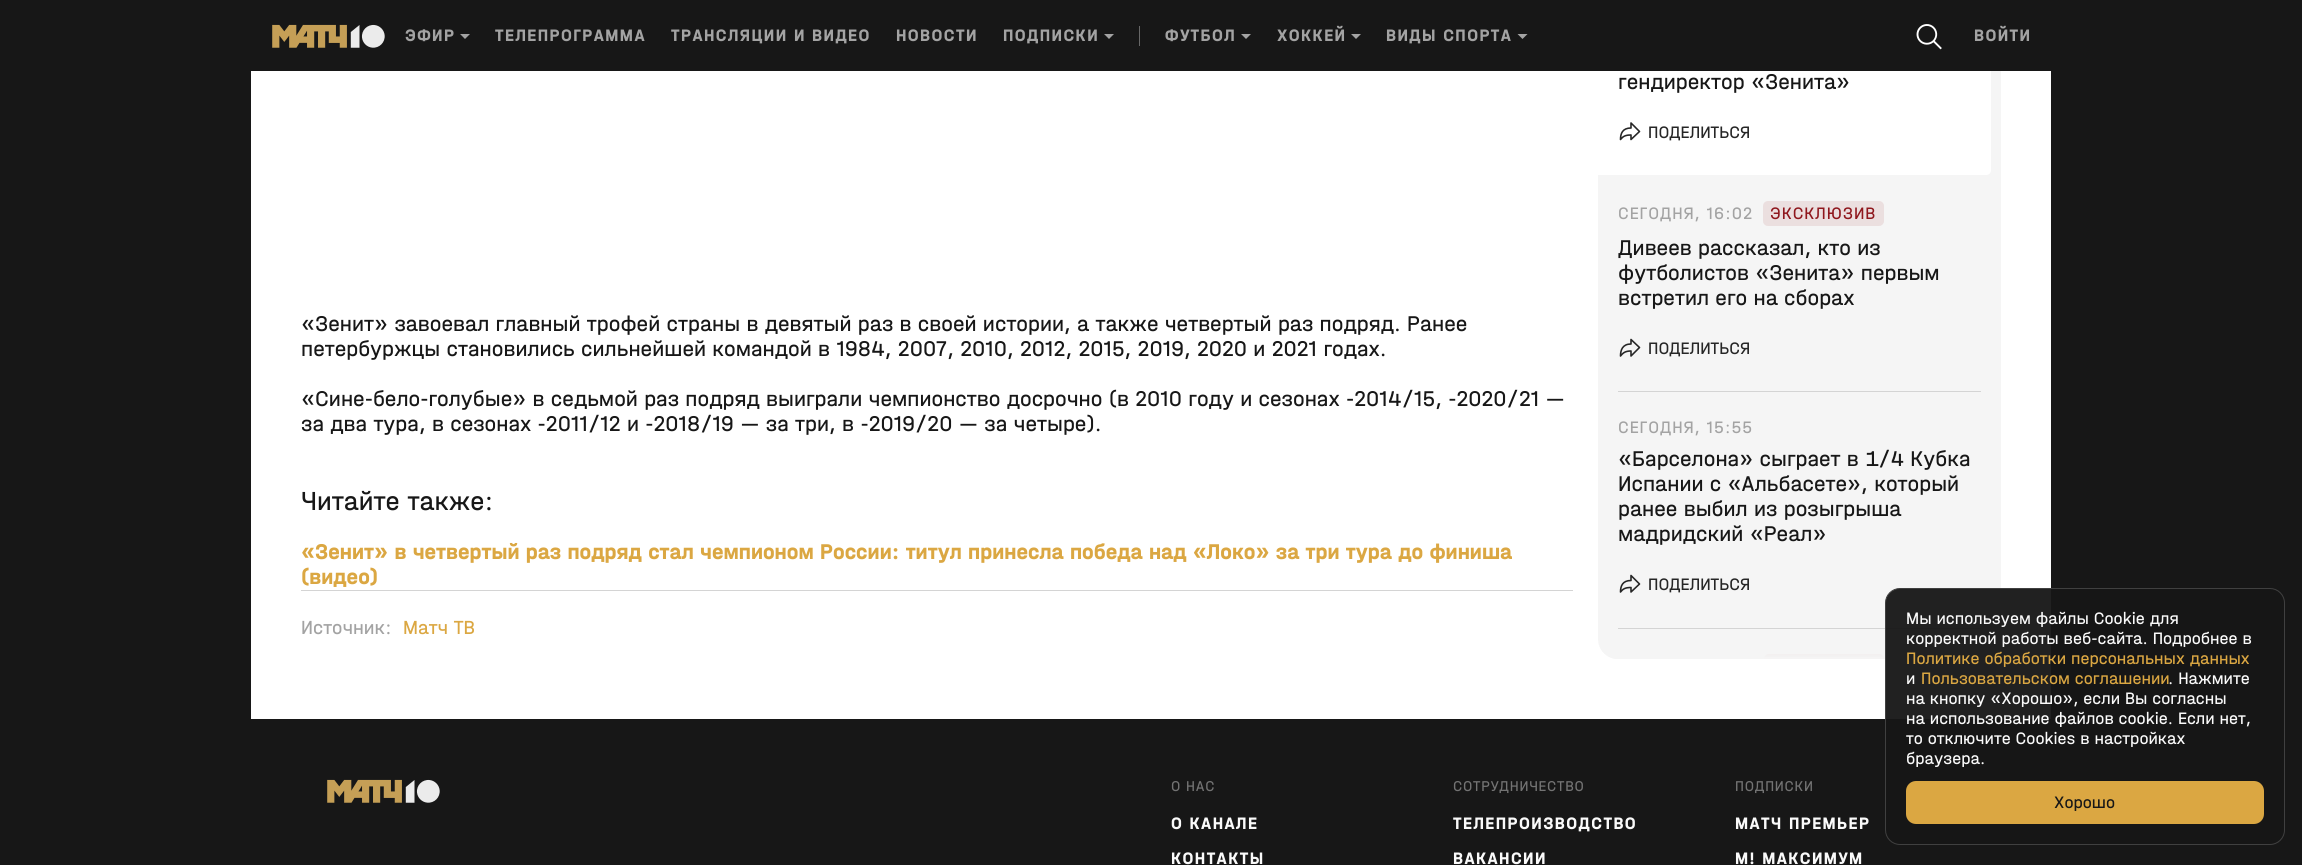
#include <cairo.h>
#include <math.h>
#include <stddef.h>

typedef struct { const char *family; double size; int italic, bold; unsigned color; } style_t;
static cairo_t *ctx;

static void ink(unsigned color) {
    cairo_set_source_rgb(ctx, (color >> 16) / 255.0, (color >> 8 & 255) / 255.0, (color & 255) / 255.0);
}

static void write(double x, double y, const char *s, const style_t *st) {
    cairo_select_font_face(ctx, st->family, st->italic ? CAIRO_FONT_SLANT_ITALIC : CAIRO_FONT_SLANT_NORMAL,
        st->bold ? CAIRO_FONT_WEIGHT_BOLD : CAIRO_FONT_WEIGHT_NORMAL);
    cairo_set_font_size(ctx, st->size);
    ink(st->color);
    cairo_move_to(ctx, x, y);
    cairo_show_text(ctx, s);
}

static void write_spaced(double x, double y, const char *s, double letter, double word) {
    cairo_move_to(ctx, x, y);
    while (*s) {
        char ch[5] = {0};
        int n = 0;
        do ch[n++] = *s++; while ((*s & 0xC0) == 0x80);
        cairo_show_text(ctx, ch);
        cairo_rel_move_to(ctx, letter + word * (*ch == ' '), 0);
    }
}

static void block(double x, double y, double w, double h, unsigned color) {
    ink(color);
    cairo_rectangle(ctx, x, y, w, h);
    cairo_fill(ctx);
}

static void round_path(double x, double y, double w, double h, double r) {
    cairo_new_sub_path(ctx);
    cairo_arc(ctx, x + w - r, y + h - r, r, 0, M_PI / 2);
    cairo_arc(ctx, x + r, y + h - r, r, M_PI / 2, M_PI);
    cairo_arc(ctx, x + r, y + r, r, M_PI, 1.5 * M_PI);
    cairo_arc(ctx, x + w - r, y + r, r, 1.5 * M_PI, 2 * M_PI);
    cairo_close_path(ctx);
}

static void paste(const char *path, double x, double y, double w, double h) {
    cairo_surface_t *image = cairo_image_surface_create_from_png(path);
    cairo_save(ctx);
    cairo_set_source_surface(ctx, image, x, y);
    cairo_rectangle(ctx, x, y, w, h);
    cairo_fill(ctx);
    cairo_restore(ctx);
    cairo_surface_destroy(image);
}

static const style_t s1 = {"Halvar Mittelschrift", 22.5, 0, 0, 0x171717};
static const style_t s2 = {"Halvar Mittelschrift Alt", 22.5, 0, 0, 0x171717};
static const style_t s3 = {"Halvar Mittelschrift", 27.5, 0, 0, 0x171717};
static const style_t s4 = {"Halvar Mittelschrift", 22.5, 0, 1, 0xdba742};
static const style_t s5 = {"Halvar Mittelschrift", 20, 0, 0, 0xa3a3a3};
static const style_t s6 = {"Halvar Mittelschrift", 20, 0, 0, 0xdba742};
static const style_t s7 = {"Halvar Mittelschrift", 17.5, 0, 0, 0x262626};
static const style_t s8 = {"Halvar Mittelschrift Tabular", 22.5, 0, 0, 0x171717};
static const style_t s9 = {"Halvar Mittelschrift", 17.5, 0, 0, 0xfafafa};
static const style_t s10 = {"Halvar Mittelschrift", 17.5, 0, 0, 0xdba742};
static const style_t s11 = {"Halvar Mittelschrift", 17.5, 0, 0, 0x171717};

int main(void) {
    cairo_surface_t *surface = cairo_image_surface_create(CAIRO_FORMAT_RGB24, 2302, 865);
    ctx = cairo_create(surface);
    cairo_font_options_t *options = cairo_font_options_create();
    cairo_font_options_set_hint_metrics(options, CAIRO_HINT_METRICS_OFF);
    cairo_font_options_set_hint_style(options, CAIRO_HINT_STYLE_NONE);
    cairo_set_font_options(ctx, options);
    cairo_set_miter_limit(ctx, 4);
    cairo_pattern_t *gradient;
    ink(0x171717);
    cairo_paint(ctx);
    block(251, 71, 1800, 648, 0xffffff);
    ink(0xf5f5f5);
    round_path(1598, -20, 403, 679, 20);
    cairo_fill(ctx);
    ink(0xffffff);
    cairo_new_path(ctx);
    cairo_move_to(ctx, 1598, -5);
    cairo_line_to(ctx, 1986, -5);
    cairo_curve_to(ctx, 1989, -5, 1991, -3, 1991, 0);
    cairo_line_to(ctx, 1991, 170);
    cairo_curve_to(ctx, 1991, 173, 1989, 175, 1986, 175);
    cairo_line_to(ctx, 1598, 175);
    cairo_close_path(ctx);
    cairo_fill(ctx);
    block(1598, 0, 403, 71, 0x171717);
    paste("pic1.png", 272, 24, 113, 24);
    cairo_select_font_face(ctx, "Halvar Mittelschrift", CAIRO_FONT_SLANT_NORMAL, CAIRO_FONT_WEIGHT_BOLD);
    cairo_set_font_size(ctx, 17.5);
    ink(0xa3a3a3);
    write_spaced(405, 41, "ЭФИР", 1.4, 0);
    cairo_new_path(ctx);
    cairo_move_to(ctx, 460, 34);
    cairo_line_to(ctx, 470, 34);
    cairo_line_to(ctx, 465, 39);
    cairo_close_path(ctx);
    cairo_fill(ctx);
    write_spaced(495, 41, "ТЕЛЕПРОГРАММА", 1.4, 0);
    write_spaced(671, 41, "ТРАНСЛЯЦИИ И ВИДЕО", 1.4, 0);
    write_spaced(896, 41, "НОВОСТИ", 1.4, 0);
    write_spaced(1003, 41, "ПОДПИСКИ", 1.4, 0);
    cairo_new_path(ctx);
    cairo_move_to(ctx, 1104, 34);
    cairo_line_to(ctx, 1114, 34);
    cairo_line_to(ctx, 1109, 39);
    cairo_close_path(ctx);
    cairo_fill(ctx);
    block(1139, 26, 1, 20, 0x676767);
    ink(0xa3a3a3);
    write_spaced(1165, 41, "ФУТБОЛ", 1.4, 0);
    cairo_new_path(ctx);
    cairo_move_to(ctx, 1241, 34);
    cairo_line_to(ctx, 1251, 34);
    cairo_line_to(ctx, 1246, 39);
    cairo_close_path(ctx);
    cairo_fill(ctx);
    write_spaced(1277, 41, "ХОККЕЙ", 1.4, 0);
    cairo_new_path(ctx);
    cairo_move_to(ctx, 1351, 34);
    cairo_line_to(ctx, 1361, 34);
    cairo_line_to(ctx, 1356, 39);
    cairo_close_path(ctx);
    cairo_fill(ctx);
    write_spaced(1386, 41, "ВИДЫ СПОРТА", 1.4, 0);
    cairo_new_path(ctx);
    cairo_move_to(ctx, 1517.5, 34);
    cairo_line_to(ctx, 1527.5, 34);
    cairo_line_to(ctx, 1522.5, 39);
    cairo_close_path(ctx);
    cairo_fill(ctx);
    paste("pic2.png", 1916, 24, 26, 26);
    write_spaced(1974, 41, "ВОЙТИ", 1.4, 0);
    write(301, 331, "«Зенит» завоевал главный трофей страны в девятый раз в своей истории, а также четвертый раз подряд. Ранее", &s1);
    write(301, 356, "петербуржцы становились сильнейшей командой в 1984, 2007, 2010, 2012, 2015, 2019, 2020 и 2021 годах.", &s2);
    write(301, 406, "«Сине-бело-голубые» в седьмой раз подряд выиграли чемпионство досрочно (в 2010 году и сезонах -2014/15, -2020/21 —", &s2);
    write(301, 431, "за два тура, в сезонах -2011/12 и -2018/19 — за три, в -2019/20 — за четыре).", &s2);
    write(301, 510, "Читайте также:", &s3);
    write(301, 559, "«Зенит» в четвертый раз подряд стал чемпионом России: титул принесла победа над «Локо» за три тура до финиша", &s4);
    write(301, 584, "(видео)", &s4);
    block(301, 590, 1272, 1, 0xd4d4d4);
    write(301, 634, "Источник:", &s5);
    write(403, 634, "Матч ТВ", &s6);
    write(1618, 89, "гендиректор «Зенита»", &s1);
    cairo_new_path(ctx);
    cairo_move_to(ctx, 1639.5, 131.5);
    cairo_line_to(ctx, 1631, 123);
    cairo_line_to(ctx, 1631, 128);
    cairo_curve_to(ctx, 1622.5, 128, 1620.5, 133.5, 1620.5, 139.5);
    cairo_curve_to(ctx, 1623, 136.5, 1625, 135, 1631, 135);
    cairo_line_to(ctx, 1631, 139.5);
    cairo_close_path(ctx);
    ink(0x262626);
    cairo_set_line_width(ctx, 1.6);
    cairo_set_line_join(ctx, CAIRO_LINE_JOIN_ROUND);
    cairo_stroke(ctx);
    write(1648, 138, "ПОДЕЛИТЬСЯ", &s7);
    ink(0xa3a3a3);
    write_spaced(1618, 219, "СЕГОДНЯ, 16:02", 0.9, 0);
    ink(0xebdfdf);
    round_path(1763, 201, 121, 25, 5);
    cairo_fill(ctx);
    ink(0x8f171d);
    write_spaced(1770, 219, "ЭКСКЛЮЗИВ", 0.9, 0);
    cairo_save(ctx);
    cairo_rectangle(ctx, 1618, 236, 363, 75);
    cairo_clip(ctx);
    write(1618, 255, "Дивеев рассказал, кто из", &s1);
    cairo_restore(ctx);
    write(1618, 280, "футболистов «Зенита» первым", &s1);
    write(1618, 305, "встретил его на сборах", &s1);
    cairo_new_path(ctx);
    cairo_move_to(ctx, 1639.5, 347.5);
    cairo_line_to(ctx, 1631, 339.5);
    cairo_line_to(ctx, 1631, 344);
    cairo_curve_to(ctx, 1622.5, 344, 1620.5, 350, 1620.5, 356);
    cairo_curve_to(ctx, 1623, 353, 1625, 351, 1631, 351);
    cairo_line_to(ctx, 1631, 356);
    cairo_close_path(ctx);
    ink(0x262626);
    cairo_stroke(ctx);
    write(1648, 354, "ПОДЕЛИТЬСЯ", &s7);
    block(1618, 391, 363, 1, 0xd4d4d4);
    ink(0xa3a3a3);
    write_spaced(1618, 433, "СЕГОДНЯ, 15:55", 0.9, 0);
    write(1618, 466, "«Барселона» сыграет в 1/4 Кубка", &s8);
    write(1618, 491, "Испании с «Альбасете», который", &s1);
    write(1618, 516, "ранее выбил из розыгрыша", &s1);
    write(1618, 541, "мадридский «Реал»", &s1);
    cairo_new_path(ctx);
    cairo_move_to(ctx, 1639.5, 584);
    cairo_line_to(ctx, 1631, 575.5);
    cairo_line_to(ctx, 1631, 580.5);
    cairo_curve_to(ctx, 1622.5, 580.5, 1620.5, 586, 1620.5, 592);
    cairo_curve_to(ctx, 1623, 589, 1625, 587.5, 1631, 587.5);
    cairo_line_to(ctx, 1631, 592);
    cairo_close_path(ctx);
    ink(0x262626);
    cairo_stroke(ctx);
    write(1648, 590, "ПОДЕЛИТЬСЯ", &s7);
    block(1618, 628, 363, 1, 0xd4d4d4);
    ink(0xebdfdf);
    cairo_new_path(ctx);
    cairo_move_to(ctx, 1769, 654);
    cairo_line_to(ctx, 1879, 654);
    cairo_curve_to(ctx, 1882, 654, 1884, 656, 1884, 659);
    cairo_line_to(ctx, 1764, 659);
    cairo_curve_to(ctx, 1764, 656, 1766, 654, 1769, 654);
    cairo_close_path(ctx);
    cairo_fill(ctx);
    gradient = cairo_pattern_create_linear(1799, 659, 1799, 639);
    cairo_pattern_add_color_stop_rgba(gradient, 0, 0.961, 0.961, 0.961, 1);
    cairo_pattern_add_color_stop_rgba(gradient, 1, 0.961, 0.961, 0.961, 0);
    cairo_set_source(ctx, gradient);
    cairo_pattern_destroy(gradient);
    cairo_new_path(ctx);
    cairo_move_to(ctx, 1598, 639);
    cairo_line_to(ctx, 2001, 639);
    cairo_curve_to(ctx, 2001, 650, 1992, 659, 1981, 659);
    cairo_line_to(ctx, 1618, 659);
    cairo_curve_to(ctx, 1607, 659, 1598, 650, 1598, 639);
    cairo_close_path(ctx);
    cairo_fill(ctx);
    paste("pic1.png", 327, 779, 113, 24);
    cairo_set_font_size(ctx, 15);
    ink(0x737373);
    write_spaced(1171, 791, "О НАС", 0.75, 0);
    cairo_select_font_face(ctx, "Halvar Mittelschrift", CAIRO_FONT_SLANT_NORMAL, CAIRO_FONT_WEIGHT_BOLD);
    cairo_set_font_size(ctx, 17.5);
    ink(0xfafafa);
    write_spaced(1171, 829, "О КАНАЛЕ", 1.4, 0);
    write_spaced(1171, 864, "КОНТАКТЫ", 1.4, 0);
    cairo_select_font_face(ctx, "Halvar Mittelschrift", CAIRO_FONT_SLANT_NORMAL, CAIRO_FONT_WEIGHT_NORMAL);
    cairo_set_font_size(ctx, 15);
    ink(0x737373);
    write_spaced(1453, 791, "СОТРУДНИЧЕСТВО", 0.75, 0);
    cairo_select_font_face(ctx, "Halvar Mittelschrift", CAIRO_FONT_SLANT_NORMAL, CAIRO_FONT_WEIGHT_BOLD);
    cairo_set_font_size(ctx, 17.5);
    ink(0xfafafa);
    write_spaced(1453, 829, "ТЕЛЕПРОИЗВОДСТВО", 1.4, 0);
    write_spaced(1453, 864, "ВАКАНСИИ", 1.4, 0);
    cairo_select_font_face(ctx, "Halvar Mittelschrift", CAIRO_FONT_SLANT_NORMAL, CAIRO_FONT_WEIGHT_NORMAL);
    cairo_set_font_size(ctx, 15);
    ink(0x737373);
    write_spaced(1735, 791, "ПОДПИСКИ", 0.75, 0);
    cairo_select_font_face(ctx, "Halvar Mittelschrift", CAIRO_FONT_SLANT_NORMAL, CAIRO_FONT_WEIGHT_BOLD);
    cairo_set_font_size(ctx, 17.5);
    ink(0xfafafa);
    write_spaced(1735, 829, "МАТЧ ПРЕМЬЕР", 1.4, 0);
    write_spaced(1735, 864, "М! МАКСИМУМ", 1.4, 0);
    cairo_set_source_rgba(ctx, 0.09, 0.09, 0.09, 0.95);
    round_path(1885.5, 588.5, 399, 256, 14.5);
    cairo_fill_preserve(ctx);
    ink(0x404040);
    cairo_set_line_width(ctx, 1);
    cairo_set_line_join(ctx, CAIRO_LINE_JOIN_MITER);
    cairo_stroke(ctx);
    write(1906, 624, "Мы используем файлы Сookie для", &s9);
    write(1906, 644, "корректной работы веб-сайта. Подробнее в", &s9);
    write(1906, 664, "Политике обработки персональных данных", &s10);
    write(1906, 684, "и", &s9);
    write(1921, 684, "Пользовательском соглашении", &s10);
    write(2168, 684, ". Нажмите", &s9);
    write(1906, 704, "на кнопку «Хорошо», если Вы согласны", &s9);
    write(1906, 724, "на использование файлов cookie. Если нет,", &s9);
    write(1906, 744, "то отключите Cookies в настройках", &s9);
    write(1906, 764, "браузера.", &s9);
    ink(0xdba742);
    round_path(1906, 781, 358, 43, 10);
    cairo_fill(ctx);
    write(2054, 808, "Хорошо", &s11);
    cairo_surface_write_to_png(surface, "screenshot.png");
    cairo_font_options_destroy(options);
    cairo_destroy(ctx);
    cairo_surface_destroy(surface);
    return 0;
}
